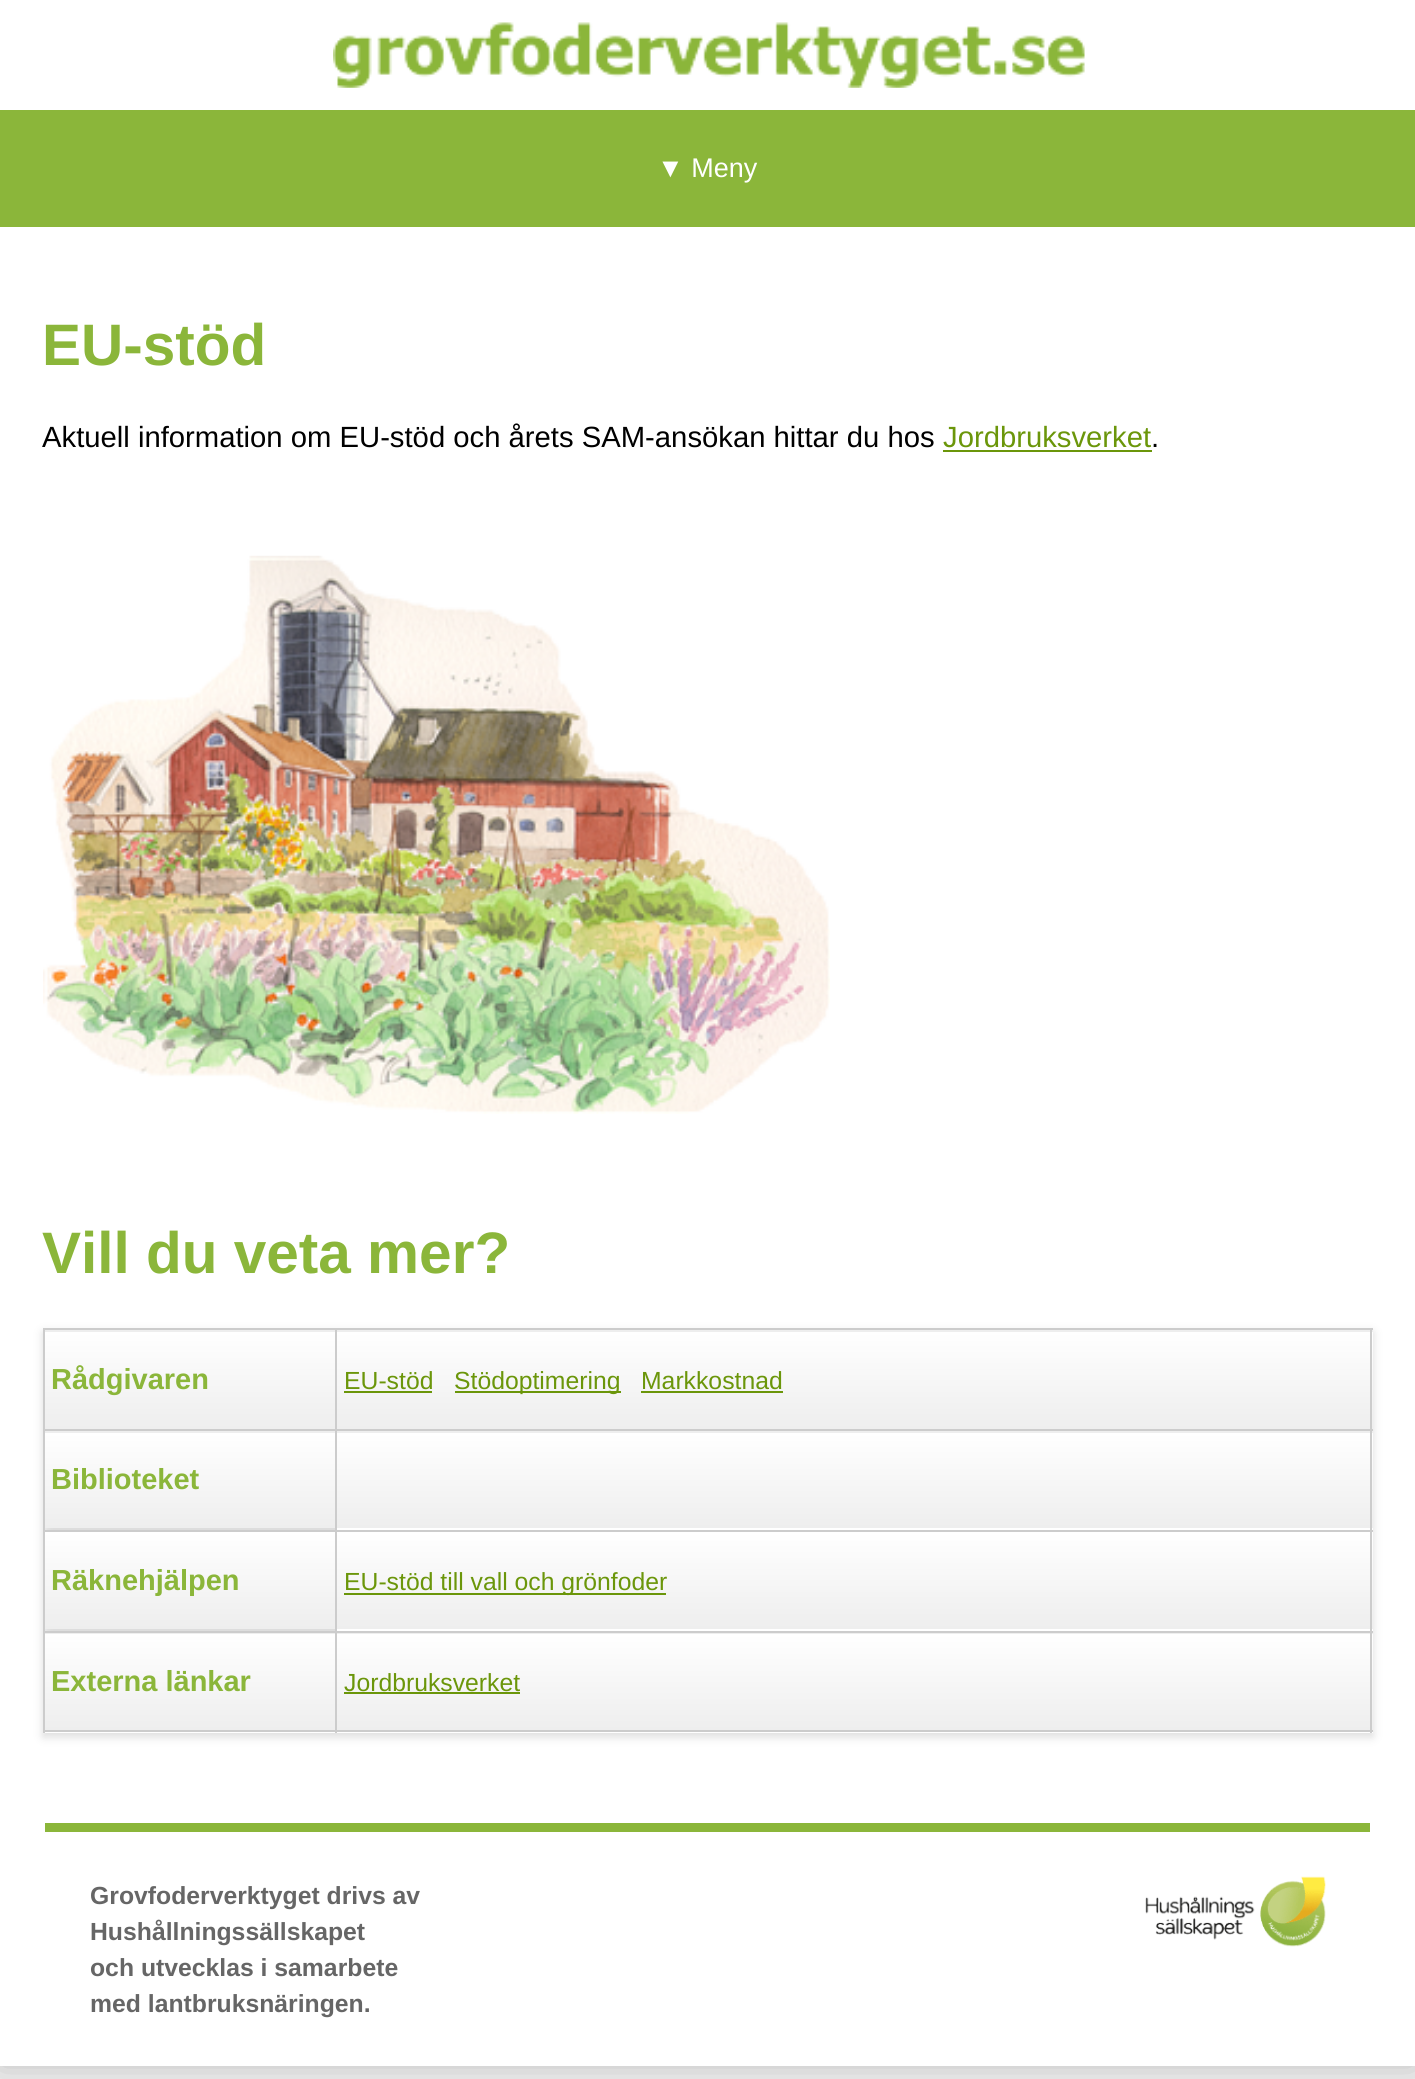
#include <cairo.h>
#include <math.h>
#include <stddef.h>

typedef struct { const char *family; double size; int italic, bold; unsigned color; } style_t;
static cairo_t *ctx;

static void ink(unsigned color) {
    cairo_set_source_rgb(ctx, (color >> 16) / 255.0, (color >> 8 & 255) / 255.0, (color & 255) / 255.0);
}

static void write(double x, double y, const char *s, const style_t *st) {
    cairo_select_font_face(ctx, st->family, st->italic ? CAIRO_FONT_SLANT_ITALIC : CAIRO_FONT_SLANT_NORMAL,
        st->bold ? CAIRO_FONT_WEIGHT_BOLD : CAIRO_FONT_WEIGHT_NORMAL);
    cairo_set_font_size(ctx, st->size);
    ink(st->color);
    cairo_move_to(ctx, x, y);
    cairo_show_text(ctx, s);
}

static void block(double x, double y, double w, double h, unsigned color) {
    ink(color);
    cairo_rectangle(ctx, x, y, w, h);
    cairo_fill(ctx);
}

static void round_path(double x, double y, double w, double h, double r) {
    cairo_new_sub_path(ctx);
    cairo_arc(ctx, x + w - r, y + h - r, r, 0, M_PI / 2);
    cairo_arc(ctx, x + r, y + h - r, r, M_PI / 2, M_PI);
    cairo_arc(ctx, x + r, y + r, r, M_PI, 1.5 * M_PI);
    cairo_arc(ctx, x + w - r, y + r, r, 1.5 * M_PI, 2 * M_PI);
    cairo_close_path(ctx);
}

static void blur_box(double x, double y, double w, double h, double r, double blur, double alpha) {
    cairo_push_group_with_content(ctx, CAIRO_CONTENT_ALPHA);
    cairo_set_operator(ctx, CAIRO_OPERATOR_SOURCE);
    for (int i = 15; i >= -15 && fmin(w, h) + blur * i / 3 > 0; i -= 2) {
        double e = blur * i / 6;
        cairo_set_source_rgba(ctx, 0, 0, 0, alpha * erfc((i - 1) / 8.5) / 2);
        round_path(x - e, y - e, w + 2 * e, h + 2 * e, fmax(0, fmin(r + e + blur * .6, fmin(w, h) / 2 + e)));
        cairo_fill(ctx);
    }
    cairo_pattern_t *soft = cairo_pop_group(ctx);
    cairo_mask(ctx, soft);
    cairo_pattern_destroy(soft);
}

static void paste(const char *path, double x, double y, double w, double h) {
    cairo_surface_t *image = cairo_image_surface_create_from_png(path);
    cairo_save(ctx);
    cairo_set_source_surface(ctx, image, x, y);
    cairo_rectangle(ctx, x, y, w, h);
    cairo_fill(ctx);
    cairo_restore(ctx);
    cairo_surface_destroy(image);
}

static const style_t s1 = {"Liberation Sans", 27, 0, 0, 0xffffff};
static const style_t s2 = {"Liberation Sans", 58.5, 0, 1, 0x8bb63a};
static const style_t s3 = {"Liberation Sans", 29.25, 0, 0, 0x000000};
static const style_t s4 = {"Liberation Sans", 29.25, 0, 0, 0x6b960a};
static const style_t s5 = {"Liberation Sans", 29, 0, 1, 0x8bb63a};
static const style_t s6 = {"Liberation Sans", 24.75, 0, 0, 0x6b960a};
static const style_t s7 = {"Liberation Sans", 24.75, 0, 1, 0x666666};

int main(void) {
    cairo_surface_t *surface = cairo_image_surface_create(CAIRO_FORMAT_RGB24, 1415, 2079);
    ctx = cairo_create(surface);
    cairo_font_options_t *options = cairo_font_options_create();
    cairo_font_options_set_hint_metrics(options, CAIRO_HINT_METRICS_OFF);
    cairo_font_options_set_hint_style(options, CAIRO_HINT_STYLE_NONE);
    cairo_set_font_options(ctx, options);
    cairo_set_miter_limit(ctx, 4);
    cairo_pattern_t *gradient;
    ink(0xeeeeee);
    cairo_paint(ctx);
    ink(0x000000);
    blur_box(0, 0, 1415, 2066, 0, 17, 0.2);
    block(0, 0, 1415, 2066, 0xffffff);
    paste("pic1.png", 333, 22, 752, 66);
    block(0, 110, 1415, 117, 0x8bb63a);
    write(657, 177, "▼ Meny", &s1);
    write(42, 365, "EU-stöd", &s2);
    write(42, 447, "Aktuell information om EU-stöd och årets SAM-ansökan hittar du hos", &s3);
    write(943, 447, "Jordbruksverket", &s4);
    block(943, 450, 209, 2, 0x6b960a);
    write(1151, 447, ".", &s3);
    paste("pic2.png", 43, 555, 787, 559);
    write(42, 1273, "Vill du veta mer?", &s2);
    ink(0xdddddd);
    blur_box(43, 1332, 1330, 405, 0, 4.5, 1);
    block(43, 1328, 1330, 2, 0xcccccc);
    gradient = cairo_pattern_create_linear(854, 1235, 854, 1332);
    cairo_pattern_add_color_stop_rgba(gradient, 0, 1, 1, 1, 1);
    cairo_pattern_add_color_stop_rgba(gradient, 1, 0.933, 0.933, 0.933, 1);
    cairo_set_source(ctx, gradient);
    cairo_pattern_destroy(gradient);
    cairo_rectangle(ctx, 335, 1330, 1038, 2);
    cairo_fill(ctx);
    gradient = cairo_pattern_create_linear(854, 1332, 854, 1429);
    cairo_pattern_add_color_stop_rgba(gradient, 0, 1, 1, 1, 1);
    cairo_pattern_add_color_stop_rgba(gradient, 1, 0.933, 0.933, 0.933, 1);
    cairo_set_source(ctx, gradient);
    cairo_pattern_destroy(gradient);
    cairo_rectangle(ctx, 337, 1332, 1036, 97);
    cairo_fill(ctx);
    gradient = cairo_pattern_create_linear(854, 1339, 854, 1433);
    cairo_pattern_add_color_stop_rgba(gradient, 0, 1, 1, 1, 1);
    cairo_pattern_add_color_stop_rgba(gradient, 1, 0.933, 0.933, 0.933, 1);
    cairo_set_source(ctx, gradient);
    cairo_pattern_destroy(gradient);
    cairo_rectangle(ctx, 335, 1431, 1038, 2);
    cairo_fill(ctx);
    gradient = cairo_pattern_create_linear(854, 1433, 854, 1528);
    cairo_pattern_add_color_stop_rgba(gradient, 0, 1, 1, 1, 1);
    cairo_pattern_add_color_stop_rgba(gradient, 1, 0.933, 0.933, 0.933, 1);
    cairo_set_source(ctx, gradient);
    cairo_pattern_destroy(gradient);
    cairo_rectangle(ctx, 337, 1433, 1036, 95);
    cairo_fill(ctx);
    gradient = cairo_pattern_create_linear(854, 1528, 854, 1622);
    cairo_pattern_add_color_stop_rgba(gradient, 0, 1, 1, 1, 1);
    cairo_pattern_add_color_stop_rgba(gradient, 1, 0.933, 0.933, 0.933, 1);
    cairo_set_source(ctx, gradient);
    cairo_pattern_destroy(gradient);
    cairo_rectangle(ctx, 335, 1528, 1038, 2);
    cairo_fill(ctx);
    gradient = cairo_pattern_create_linear(854, 1532, 854, 1629);
    cairo_pattern_add_color_stop_rgba(gradient, 0, 1, 1, 1, 1);
    cairo_pattern_add_color_stop_rgba(gradient, 1, 0.933, 0.933, 0.933, 1);
    cairo_set_source(ctx, gradient);
    cairo_pattern_destroy(gradient);
    cairo_rectangle(ctx, 337, 1532, 1036, 97);
    cairo_fill(ctx);
    gradient = cairo_pattern_create_linear(854, 1629, 854, 1726);
    cairo_pattern_add_color_stop_rgba(gradient, 0, 1, 1, 1, 1);
    cairo_pattern_add_color_stop_rgba(gradient, 1, 0.933, 0.933, 0.933, 1);
    cairo_set_source(ctx, gradient);
    cairo_pattern_destroy(gradient);
    cairo_rectangle(ctx, 335, 1629, 1038, 2);
    cairo_fill(ctx);
    gradient = cairo_pattern_create_linear(854, 1537, 854, 1634);
    cairo_pattern_add_color_stop_rgba(gradient, 0, 1, 1, 1, 1);
    cairo_pattern_add_color_stop_rgba(gradient, 1, 0.933, 0.933, 0.933, 1);
    cairo_set_source(ctx, gradient);
    cairo_pattern_destroy(gradient);
    cairo_rectangle(ctx, 335, 1633, 1038, 1);
    cairo_fill(ctx);
    gradient = cairo_pattern_create_linear(854, 1634, 854, 1730);
    cairo_pattern_add_color_stop_rgba(gradient, 0, 1, 1, 1, 1);
    cairo_pattern_add_color_stop_rgba(gradient, 1, 0.933, 0.933, 0.933, 1);
    cairo_set_source(ctx, gradient);
    cairo_pattern_destroy(gradient);
    cairo_rectangle(ctx, 337, 1634, 1036, 96);
    cairo_fill(ctx);
    gradient = cairo_pattern_create_linear(854, 1730, 854, 1827);
    cairo_pattern_add_color_stop_rgba(gradient, 0, 1, 1, 1, 1);
    cairo_pattern_add_color_stop_rgba(gradient, 1, 0.933, 0.933, 0.933, 1);
    cairo_set_source(ctx, gradient);
    cairo_pattern_destroy(gradient);
    cairo_rectangle(ctx, 335, 1732, 1038, 1);
    cairo_fill(ctx);
    block(1370, 1328, 2, 405, 0xcccccc);
    block(43, 1730, 1330, 2, 0xcccccc);
    gradient = cairo_pattern_create_linear(189, 1235, 189, 1332);
    cairo_pattern_add_color_stop_rgba(gradient, 0, 1, 1, 1, 1);
    cairo_pattern_add_color_stop_rgba(gradient, 1, 0.933, 0.933, 0.933, 1);
    cairo_set_source(ctx, gradient);
    cairo_pattern_destroy(gradient);
    cairo_rectangle(ctx, 43, 1330, 292, 2);
    cairo_fill(ctx);
    gradient = cairo_pattern_create_linear(189, 1339, 189, 1433);
    cairo_pattern_add_color_stop_rgba(gradient, 0, 1, 1, 1, 1);
    cairo_pattern_add_color_stop_rgba(gradient, 1, 0.933, 0.933, 0.933, 1);
    cairo_set_source(ctx, gradient);
    cairo_pattern_destroy(gradient);
    cairo_rectangle(ctx, 43, 1431, 292, 2);
    cairo_fill(ctx);
    gradient = cairo_pattern_create_linear(189, 1537, 189, 1634);
    cairo_pattern_add_color_stop_rgba(gradient, 0, 1, 1, 1, 1);
    cairo_pattern_add_color_stop_rgba(gradient, 1, 0.933, 0.933, 0.933, 1);
    cairo_set_source(ctx, gradient);
    cairo_pattern_destroy(gradient);
    cairo_rectangle(ctx, 43, 1633, 292, 1);
    cairo_fill(ctx);
    gradient = cairo_pattern_create_linear(189, 1730, 189, 1827);
    cairo_pattern_add_color_stop_rgba(gradient, 0, 1, 1, 1, 1);
    cairo_pattern_add_color_stop_rgba(gradient, 1, 0.933, 0.933, 0.933, 1);
    cairo_set_source(ctx, gradient);
    cairo_pattern_destroy(gradient);
    cairo_rectangle(ctx, 43, 1732, 292, 1);
    cairo_fill(ctx);
    block(43, 1328, 2, 405, 0xcccccc);
    gradient = cairo_pattern_create_linear(189, 1332, 189, 1429);
    cairo_pattern_add_color_stop_rgba(gradient, 0, 1, 1, 1, 1);
    cairo_pattern_add_color_stop_rgba(gradient, 1, 0.933, 0.933, 0.933, 1);
    cairo_set_source(ctx, gradient);
    cairo_pattern_destroy(gradient);
    cairo_rectangle(ctx, 45, 1332, 290, 97);
    cairo_fill(ctx);
    write(51, 1389, "Rådgivaren", &s5);
    block(335, 1429, 1038, 2, 0xcccccc);
    block(335, 1530, 1038, 2, 0xcccccc);
    block(335, 1631, 1038, 2, 0xcccccc);
    block(335, 1631, 2, 102, 0xcccccc);
    block(43, 1631, 295, 2, 0xcccccc);
    block(335, 1530, 2, 104, 0xcccccc);
    block(43, 1530, 295, 2, 0xcccccc);
    block(335, 1429, 2, 103, 0xcccccc);
    block(43, 1429, 295, 2, 0xcccccc);
    block(335, 1328, 2, 103, 0xcccccc);
    write(344, 1389, "EU-stöd", &s6);
    block(344, 1391, 88, 2, 0x6b960a);
    block(455, 1391, 166, 2, 0x6b960a);
    write(454, 1389, "Stödoptimering", &s6);
    write(641, 1389, "Markkostnad", &s6);
    block(641, 1391, 142, 2, 0x6b960a);
    gradient = cairo_pattern_create_linear(189, 1433, 189, 1528);
    cairo_pattern_add_color_stop_rgba(gradient, 0, 1, 1, 1, 1);
    cairo_pattern_add_color_stop_rgba(gradient, 1, 0.933, 0.933, 0.933, 1);
    cairo_set_source(ctx, gradient);
    cairo_pattern_destroy(gradient);
    cairo_rectangle(ctx, 45, 1433, 290, 95);
    cairo_fill(ctx);
    write(51, 1489, "Biblioteket", &s5);
    gradient = cairo_pattern_create_linear(189, 1532, 189, 1629);
    cairo_pattern_add_color_stop_rgba(gradient, 0, 1, 1, 1, 1);
    cairo_pattern_add_color_stop_rgba(gradient, 1, 0.933, 0.933, 0.933, 1);
    cairo_set_source(ctx, gradient);
    cairo_pattern_destroy(gradient);
    cairo_rectangle(ctx, 45, 1532, 290, 97);
    cairo_fill(ctx);
    write(51, 1590, "Räknehjälpen", &s5);
    block(344, 1593, 322, 2, 0x6b960a);
    write(344, 1590, "EU-stöd till vall och grönfoder", &s6);
    gradient = cairo_pattern_create_linear(189, 1634, 189, 1730);
    cairo_pattern_add_color_stop_rgba(gradient, 0, 1, 1, 1, 1);
    cairo_pattern_add_color_stop_rgba(gradient, 1, 0.933, 0.933, 0.933, 1);
    cairo_set_source(ctx, gradient);
    cairo_pattern_destroy(gradient);
    cairo_rectangle(ctx, 45, 1634, 290, 96);
    cairo_fill(ctx);
    write(51, 1691, "Externa länkar", &s5);
    write(344, 1691, "Jordbruksverket", &s6);
    block(344, 1692, 176, 2, 0x6b960a);
    block(45, 1823, 1325, 9, 0x8bb63a);
    write(90, 1904, "Grovfoderverktyget drivs av", &s7);
    write(90, 1940, "Hushållningssällskapet", &s7);
    write(90, 1976, "och utvecklas i samarbete", &s7);
    write(90, 2012, "med lantbruksnäringen.", &s7);
    paste("pic3.png", 1145, 1876, 181, 71);
    cairo_surface_write_to_png(surface, "screenshot.png");
    cairo_font_options_destroy(options);
    cairo_destroy(ctx);
    cairo_surface_destroy(surface);
    return 0;
}
